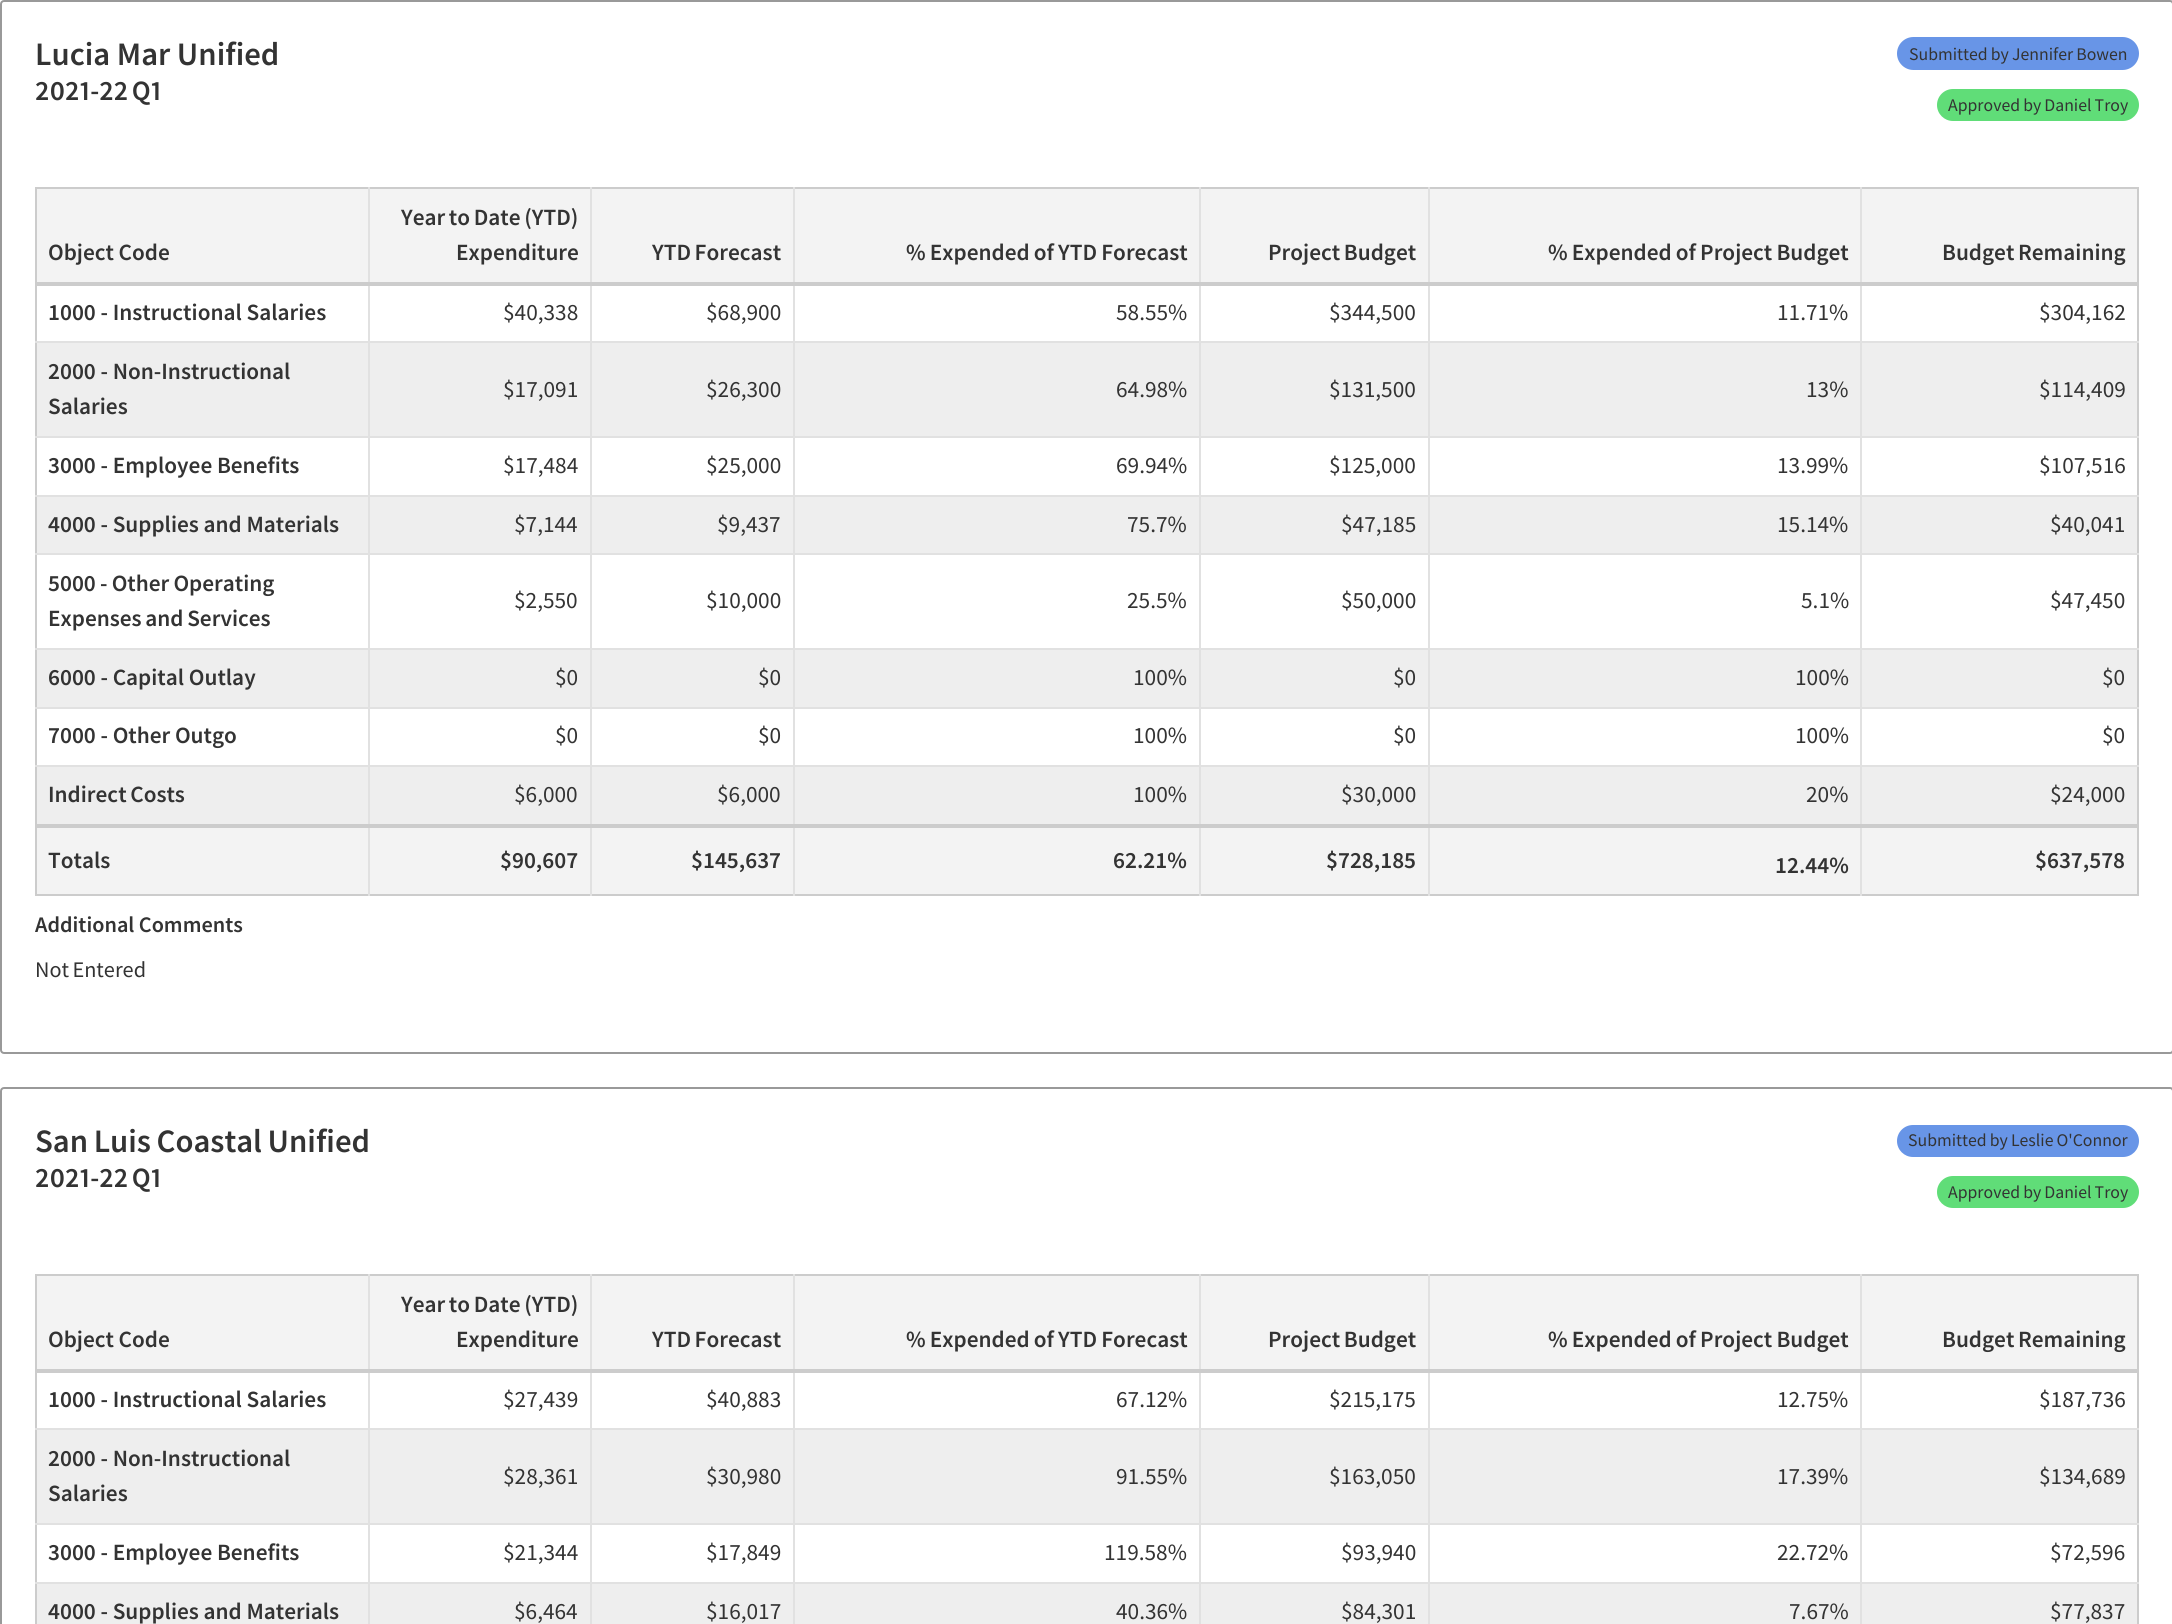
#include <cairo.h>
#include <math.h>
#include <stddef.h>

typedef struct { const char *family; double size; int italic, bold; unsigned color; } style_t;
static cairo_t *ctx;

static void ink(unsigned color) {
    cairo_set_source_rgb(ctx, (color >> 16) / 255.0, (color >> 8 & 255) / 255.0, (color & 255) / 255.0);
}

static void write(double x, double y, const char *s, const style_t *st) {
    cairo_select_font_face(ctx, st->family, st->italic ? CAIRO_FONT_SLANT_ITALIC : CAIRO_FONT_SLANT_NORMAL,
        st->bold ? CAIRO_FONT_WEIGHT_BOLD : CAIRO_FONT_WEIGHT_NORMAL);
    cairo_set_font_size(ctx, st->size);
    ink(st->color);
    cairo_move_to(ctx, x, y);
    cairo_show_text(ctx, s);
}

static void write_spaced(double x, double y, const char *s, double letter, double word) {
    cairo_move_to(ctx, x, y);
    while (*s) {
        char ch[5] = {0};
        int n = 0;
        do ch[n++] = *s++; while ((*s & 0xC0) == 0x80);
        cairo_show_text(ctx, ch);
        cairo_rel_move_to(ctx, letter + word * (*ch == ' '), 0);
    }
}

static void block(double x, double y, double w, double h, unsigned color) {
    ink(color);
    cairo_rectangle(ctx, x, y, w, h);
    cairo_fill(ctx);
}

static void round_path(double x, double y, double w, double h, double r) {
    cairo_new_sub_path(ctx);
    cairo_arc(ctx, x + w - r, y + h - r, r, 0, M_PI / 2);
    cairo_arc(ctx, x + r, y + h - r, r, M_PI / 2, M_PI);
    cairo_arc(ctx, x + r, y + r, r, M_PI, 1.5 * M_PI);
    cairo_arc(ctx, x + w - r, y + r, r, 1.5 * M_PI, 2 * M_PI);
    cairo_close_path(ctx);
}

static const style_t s1 = {"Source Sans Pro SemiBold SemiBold", 32.75, 0, 0, 0x333333};
static const style_t s2 = {"Source Sans Pro SemiBold SemiBold", 23.3, 0, 0, 0x333333};
static const style_t s3 = {"Source Sans Pro", 23.3, 0, 0, 0x333333};
static const style_t s4 = {"Source Sans Pro SemiBold SemiBold", 22.25, 0, 0, 0x333333};

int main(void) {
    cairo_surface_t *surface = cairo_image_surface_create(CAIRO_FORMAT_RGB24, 2172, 1624);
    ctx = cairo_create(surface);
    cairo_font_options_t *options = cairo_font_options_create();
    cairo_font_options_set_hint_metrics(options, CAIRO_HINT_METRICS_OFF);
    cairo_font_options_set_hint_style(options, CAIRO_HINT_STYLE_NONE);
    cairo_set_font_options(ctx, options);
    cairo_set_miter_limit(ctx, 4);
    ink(0xffffff);
    cairo_paint(ctx);
    round_path(1, 1, 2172, 1052, 3);
    ink(0x999999);
    cairo_stroke(ctx);
    write(35, 65, "Lucia Mar Unified", &s1);
    cairo_select_font_face(ctx, "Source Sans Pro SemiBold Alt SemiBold", CAIRO_FONT_SLANT_NORMAL, CAIRO_FONT_WEIGHT_NORMAL);
    cairo_set_font_size(ctx, 28);
    write_spaced(35, 100, "2021-22 Q1", 0, -2);
    ink(0x6895e7);
    round_path(1897, 37, 242, 33, 16.5);
    cairo_fill(ctx);
    cairo_select_font_face(ctx, "Source Sans Pro", CAIRO_FONT_SLANT_NORMAL, CAIRO_FONT_WEIGHT_NORMAL);
    cairo_set_font_size(ctx, 17.75);
    ink(0x333333);
    write_spaced(1909, 60, "Submitted by Jennifer Bowen", 0, -0.5);
    ink(0x60dd78);
    round_path(1937, 89, 202, 32, 16);
    cairo_fill(ctx);
    ink(0x333333);
    write_spaced(1948, 111, "Approved by Daniel Troy", 0, -0.5);
    block(35, 187, 2104, 2, 0xcccccc);
    block(2137, 187, 2, 709, 0xcccccc);
    block(35, 894, 2104, 2, 0xcccccc);
    block(35, 187, 2, 709, 0xcccccc);
    block(37, 189, 2100, 93, 0xf3f3f3);
    block(35, 341, 2104, 2, 0xe1e1e1);
    block(37, 343, 2100, 93, 0xeeeeee);
    block(35, 436, 2104, 2, 0xe1e1e1);
    block(35, 495, 2104, 2, 0xe1e1e1);
    block(37, 497, 2100, 56, 0xeeeeee);
    block(35, 553, 2104, 2, 0xe1e1e1);
    block(35, 648, 2104, 2, 0xe1e1e1);
    block(37, 650, 2100, 57, 0xeeeeee);
    block(35, 707, 2104, 2, 0xe1e1e1);
    block(35, 765, 2104, 2, 0xe1e1e1);
    block(37, 767, 2100, 57, 0xeeeeee);
    block(37, 828, 2100, 66, 0xf3f3f3);
    block(368, 187, 2, 709, 0xe1e1e1);
    block(590, 187, 2, 709, 0xe1e1e1);
    block(793, 187, 2, 709, 0xe1e1e1);
    block(1199, 187, 2, 709, 0xe1e1e1);
    block(1428, 187, 2, 709, 0xe1e1e1);
    block(1860, 187, 2, 709, 0xe1e1e1);
    block(35, 282, 2104, 4, 0xcccccc);
    write(48, 260, "Object Code", &s2);
    write_spaced(401, 225, "Year to Date (YTD)", 0, -1);
    write(456, 260, "Expenditure", &s2);
    write_spaced(652, 260, "YTD Forecast", 0, -1);
    write_spaced(906, 260, "% Expended of YTD Forecast", 0, -0.5);
    write_spaced(1268, 260, "Project Budget", 0, -1);
    write_spaced(1548, 260, "% Expended of Project Budget", 0, -0.5);
    write_spaced(1942, 260, "Budget Remaining", 0, -1);
    write(48, 320, "1000 - Instructional Salaries", &s2);
    write(503, 320, "$40,338", &s3);
    write(706, 320, "$68,900", &s3);
    write(1116, 320, "58.55%", &s3);
    write(1329, 320, "$344,500", &s3);
    write(1777, 320, "11.71%", &s3);
    write(2039, 320, "$304,162", &s3);
    write(48, 379, "2000 - Non-Instructional", &s2);
    write(48, 414, "Salaries", &s2);
    write(503, 397, "$17,091", &s3);
    write(706, 397, "$26,300", &s3);
    write(1116, 397, "64.98%", &s3);
    write(1329, 397, "$131,500", &s3);
    write(1806, 397, "13%", &s3);
    write(2039, 397, "$114,409", &s3);
    write(48, 473, "3000 - Employee Benefits", &s2);
    write(503, 473, "$17,484", &s3);
    write(706, 473, "$25,000", &s3);
    write(1116, 473, "69.94%", &s3);
    write(1329, 473, "$125,000", &s3);
    write(1777, 473, "13.99%", &s3);
    write(2039, 473, "$107,516", &s3);
    write(48, 532, "4000 - Supplies and Materials", &s2);
    write(514, 532, "$7,144", &s3);
    write(717, 532, "$9,437", &s3);
    write(1127, 532, "75.7%", &s3);
    write(1341, 532, "$47,185", &s3);
    write(1777, 532, "15.14%", &s3);
    write(2050, 532, "$40,041", &s3);
    cairo_select_font_face(ctx, "Source Sans Pro SemiBold SemiBold", CAIRO_FONT_SLANT_NORMAL, CAIRO_FONT_WEIGHT_NORMAL);
    write_spaced(48, 591, "5000 - Other Operating", 0, -0.5);
    write_spaced(48, 626, "Expenses and Services", 0, -1);
    write(514, 608, "$2,550", &s3);
    write(706, 608, "$10,000", &s3);
    write(1127, 608, "25.5%", &s3);
    write(1341, 608, "$50,000", &s3);
    write(1801, 608, "5.1%", &s3);
    write(2050, 608, "$47,450", &s3);
    write(48, 685, "6000 - Capital Outlay", &s2);
    write(555, 685, "$0", &s3);
    write(758, 685, "$0", &s3);
    write(1133, 685, "100%", &s3);
    write(1393, 685, "$0", &s3);
    write(1795, 685, "100%", &s3);
    write(2102, 685, "$0", &s3);
    write(48, 743, "7000 - Other Outgo", &s2);
    write(555, 743, "$0", &s3);
    write(758, 743, "$0", &s3);
    write(1133, 743, "100%", &s3);
    write(1393, 743, "$0", &s3);
    write(1795, 743, "100%", &s3);
    write(2102, 743, "$0", &s3);
    cairo_select_font_face(ctx, "Source Sans Pro SemiBold SemiBold", CAIRO_FONT_SLANT_NORMAL, CAIRO_FONT_WEIGHT_NORMAL);
    write_spaced(48, 802, "Indirect Costs", 0, -1);
    write(514, 802, "$6,000", &s3);
    write(717, 802, "$6,000", &s3);
    write(1133, 802, "100%", &s3);
    write(1341, 802, "$30,000", &s3);
    write(1806, 802, "20%", &s3);
    write(2050, 802, "$24,000", &s3);
    block(35, 824, 2104, 4, 0xcccccc);
    write(48, 868, "Totals", &s2);
    write(500, 868, "$90,607", &s2);
    write(691, 868, "$145,637", &s2);
    write(1113, 868, "62.21%", &s2);
    write(1326, 868, "$728,185", &s2);
    write(1775, 873, "12.44%", &s2);
    write(2035, 868, "$637,578", &s2);
    write(35, 932, "Additional Comments", &s4);
    cairo_select_font_face(ctx, "Source Sans Pro", CAIRO_FONT_SLANT_NORMAL, CAIRO_FONT_WEIGHT_NORMAL);
    write_spaced(35, 977, "Not Entered", 0, -1);
    round_path(1, 1088, 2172, 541, 3);
    ink(0x999999);
    cairo_stroke(ctx);
    cairo_select_font_face(ctx, "Source Sans Pro SemiBold SemiBold", CAIRO_FONT_SLANT_NORMAL, CAIRO_FONT_WEIGHT_NORMAL);
    cairo_set_font_size(ctx, 32.75);
    ink(0x333333);
    write_spaced(35, 1152, "San Luis Coastal Unified", 0, -1);
    cairo_select_font_face(ctx, "Source Sans Pro SemiBold Alt SemiBold", CAIRO_FONT_SLANT_NORMAL, CAIRO_FONT_WEIGHT_NORMAL);
    cairo_set_font_size(ctx, 28);
    write_spaced(35, 1187, "2021-22 Q1", 0, -2);
    ink(0x6895e7);
    round_path(1897, 1125, 242, 32, 16);
    cairo_fill(ctx);
    cairo_select_font_face(ctx, "Source Sans Pro", CAIRO_FONT_SLANT_NORMAL, CAIRO_FONT_WEIGHT_NORMAL);
    cairo_set_font_size(ctx, 17.75);
    ink(0x333333);
    write_spaced(1908, 1146, "Submitted by Leslie O'Connor", 0, -0.5);
    ink(0x60dd78);
    round_path(1937, 1176, 202, 32, 16);
    cairo_fill(ctx);
    ink(0x333333);
    write_spaced(1948, 1198, "Approved by Daniel Troy", 0, -0.5);
    block(35, 1274, 2104, 2, 0xcccccc);
    block(2137, 1274, 2, 350, 0xcccccc);
    block(35, 1274, 2, 350, 0xcccccc);
    block(37, 1276, 2100, 93, 0xf3f3f3);
    block(35, 1428, 2104, 2, 0xe1e1e1);
    block(37, 1430, 2100, 93, 0xeeeeee);
    block(35, 1523, 2104, 2, 0xe1e1e1);
    block(35, 1582, 2104, 2, 0xe1e1e1);
    block(37, 1584, 2100, 40, 0xeeeeee);
    block(368, 1274, 2, 350, 0xe1e1e1);
    block(590, 1274, 2, 350, 0xe1e1e1);
    block(793, 1274, 2, 350, 0xe1e1e1);
    block(1199, 1274, 2, 350, 0xe1e1e1);
    block(1428, 1274, 2, 350, 0xe1e1e1);
    block(1860, 1274, 2, 350, 0xe1e1e1);
    block(35, 1369, 2104, 4, 0xcccccc);
    write(48, 1347, "Object Code", &s2);
    write_spaced(401, 1312, "Year to Date (YTD)", 0, -1);
    write(456, 1347, "Expenditure", &s2);
    write_spaced(652, 1347, "YTD Forecast", 0, -1);
    write_spaced(906, 1347, "% Expended of YTD Forecast", 0, -0.5);
    write_spaced(1268, 1347, "Project Budget", 0, -1);
    write_spaced(1548, 1347, "% Expended of Project Budget", 0, -0.5);
    write_spaced(1942, 1347, "Budget Remaining", 0, -1);
    write(48, 1407, "1000 - Instructional Salaries", &s2);
    write(503, 1407, "$27,439", &s3);
    write(706, 1407, "$40,883", &s3);
    write(1116, 1407, "67.12%", &s3);
    write(1329, 1407, "$215,175", &s3);
    write(1777, 1407, "12.75%", &s3);
    write(2039, 1407, "$187,736", &s3);
    write(48, 1466, "2000 - Non-Instructional", &s2);
    write(48, 1501, "Salaries", &s2);
    write(503, 1484, "$28,361", &s3);
    write(706, 1484, "$30,980", &s3);
    write(1116, 1484, "91.55%", &s3);
    write(1329, 1484, "$163,050", &s3);
    write(1777, 1484, "17.39%", &s3);
    write(2039, 1484, "$134,689", &s3);
    write(48, 1560, "3000 - Employee Benefits", &s2);
    write(503, 1560, "$21,344", &s3);
    write(706, 1560, "$17,849", &s3);
    write(1104, 1560, "119.58%", &s3);
    write(1341, 1560, "$93,940", &s3);
    write(1777, 1560, "22.72%", &s3);
    write(2050, 1560, "$72,596", &s3);
    write(48, 1619, "4000 - Supplies and Materials", &s2);
    write(514, 1619, "$6,464", &s3);
    write(706, 1619, "$16,017", &s3);
    write(1116, 1619, "40.36%", &s3);
    write(1341, 1619, "$84,301", &s3);
    write(1789, 1619, "7.67%", &s3);
    write(2050, 1619, "$77,837", &s3);
    cairo_surface_write_to_png(surface, "screenshot.png");
    cairo_font_options_destroy(options);
    cairo_destroy(ctx);
    cairo_surface_destroy(surface);
    return 0;
}
